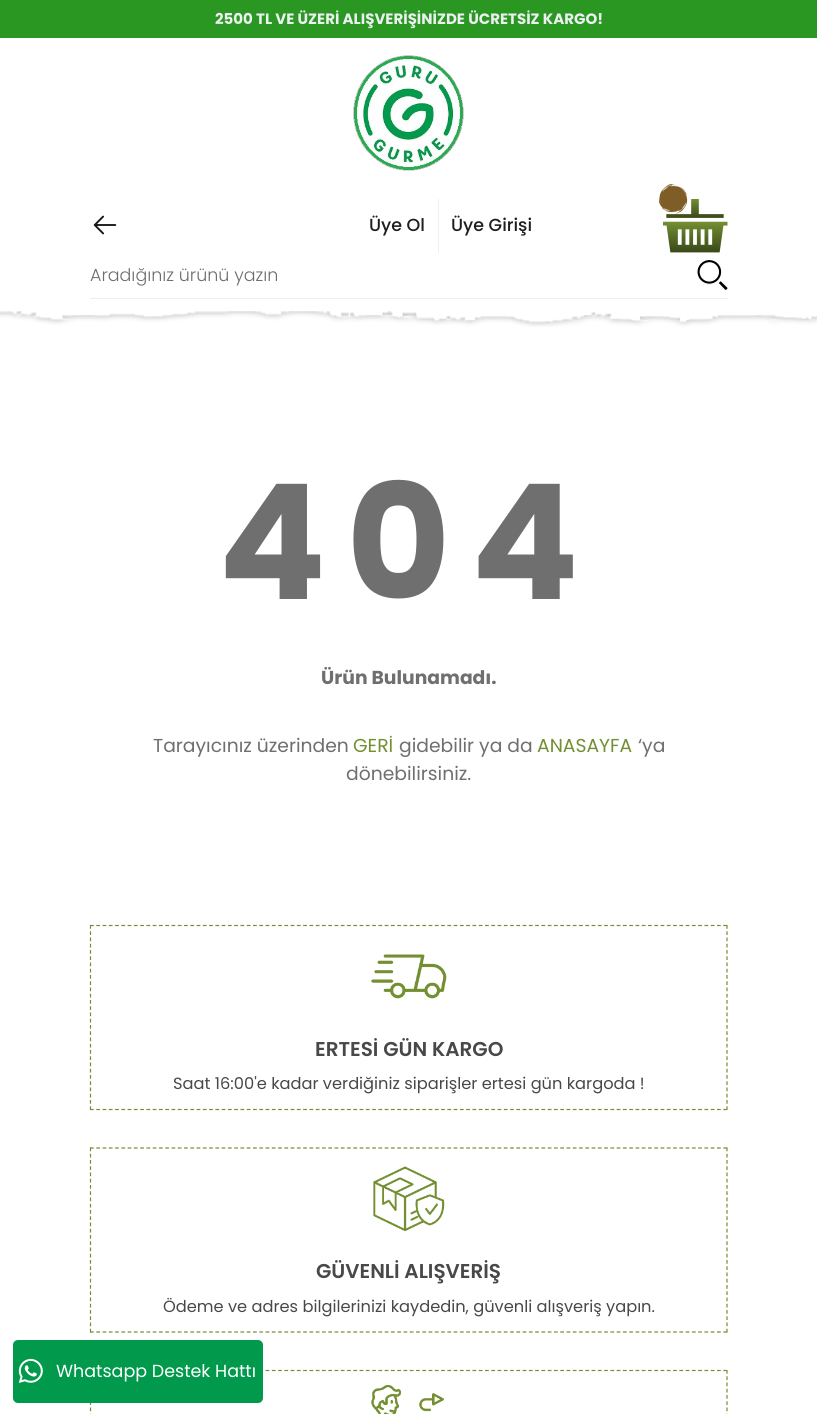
#include <cairo.h>
#include <math.h>
#include <stddef.h>

typedef struct { const char *family; double size; int italic, bold; unsigned color; } style_t;
static cairo_t *ctx;

static void ink(unsigned color) {
    cairo_set_source_rgb(ctx, (color >> 16) / 255.0, (color >> 8 & 255) / 255.0, (color & 255) / 255.0);
}

static void write(double x, double y, const char *s, const style_t *st) {
    cairo_select_font_face(ctx, st->family, st->italic ? CAIRO_FONT_SLANT_ITALIC : CAIRO_FONT_SLANT_NORMAL,
        st->bold ? CAIRO_FONT_WEIGHT_BOLD : CAIRO_FONT_WEIGHT_NORMAL);
    cairo_set_font_size(ctx, st->size);
    ink(st->color);
    cairo_move_to(ctx, x, y);
    cairo_show_text(ctx, s);
}

static void write_spaced(double x, double y, const char *s, double letter, double word) {
    cairo_move_to(ctx, x, y);
    while (*s) {
        char ch[5] = {0};
        int n = 0;
        do ch[n++] = *s++; while ((*s & 0xC0) == 0x80);
        cairo_show_text(ctx, ch);
        cairo_rel_move_to(ctx, letter + word * (*ch == ' '), 0);
    }
}

static void block(double x, double y, double w, double h, unsigned color) {
    ink(color);
    cairo_rectangle(ctx, x, y, w, h);
    cairo_fill(ctx);
}

static void round_path(double x, double y, double w, double h, double r) {
    cairo_new_sub_path(ctx);
    cairo_arc(ctx, x + w - r, y + h - r, r, 0, M_PI / 2);
    cairo_arc(ctx, x + r, y + h - r, r, M_PI / 2, M_PI);
    cairo_arc(ctx, x + r, y + r, r, M_PI, 1.5 * M_PI);
    cairo_arc(ctx, x + w - r, y + r, r, 1.5 * M_PI, 2 * M_PI);
    cairo_close_path(ctx);
}

static void paste(const char *path, double x, double y, double w, double h) {
    cairo_surface_t *image = cairo_image_surface_create_from_png(path);
    cairo_save(ctx);
    cairo_set_source_surface(ctx, image, x, y);
    cairo_rectangle(ctx, x, y, w, h);
    cairo_fill(ctx);
    cairo_restore(ctx);
    cairo_surface_destroy(image);
}

static const style_t s1 = {"Poppins", 15, 0, 1, 0xecf0f1};
static const style_t s2 = {"Poppins Medium", 17.5, 0, 0, 0x1e1e1e};
static const style_t s3 = {"Poppins Light", 17.5, 0, 0, 0x6f6f6f};
static const style_t s4 = {"Poppins", 18.75, 0, 1, 0x6f6f6f};
static const style_t s5 = {"Poppins", 18.75, 0, 0, 0x6f6f6f};
static const style_t s6 = {"Poppins", 18.75, 0, 0, 0x738f31};
static const style_t s7 = {"Poppins SemiBold", 20, 0, 0, 0x484848};
static const style_t s8 = {"Poppins", 16.25, 0, 0, 0x484848};
static const style_t s9 = {"Poppins", 17.5, 0, 0, 0xffffff};

int main(void) {
    cairo_surface_t *surface = cairo_image_surface_create(CAIRO_FORMAT_RGB24, 817, 1414);
    ctx = cairo_create(surface);
    cairo_font_options_t *options = cairo_font_options_create();
    cairo_font_options_set_hint_metrics(options, CAIRO_HINT_METRICS_OFF);
    cairo_font_options_set_hint_style(options, CAIRO_HINT_STYLE_NONE);
    cairo_set_font_options(ctx, options);
    cairo_set_miter_limit(ctx, 4);
    ink(0xffffff);
    cairo_paint(ctx);
    block(0, 0, 817, 38, 0x299721);
    write(215, 24, "2500 TL VE ÜZERİ ALIŞVERİŞİNİZDE ÜCRETSİZ KARGO!", &s1);
    paste("pic1.png", 353, 55, 111, 116);
    paste("pic2.png", 93, 215, 24, 20);
    block(438, 199, 1, 54, 0xefefef);
    write(369, 231, "Üye Ol", &s2);
    write(451, 231, "Üye Girişi", &s2);
    paste("pic3.png", 663, 199, 65, 54);
    paste("pic4.png", 659, 184, 29, 30);
    block(90, 298, 638, 1, 0xefefef);
    write(90, 281, "Aradığınız ürünü yazın", &s3);
    paste("pic5.png", 696, 259, 32, 32);
    paste("pic6.png", 0, 311, 817, 16);
    cairo_select_font_face(ctx, "Poppins", CAIRO_FONT_SLANT_NORMAL, CAIRO_FONT_WEIGHT_BOLD);
    cairo_set_font_size(ctx, 160);
    write_spaced(218, 599, "404", 20, 0);
    write(321, 684, "Ürün Bulunamadı.", &s4);
    write(153, 752, "Tarayıcınız üzerinden", &s5);
    write(353, 752, "GERİ", &s6);
    write(399, 752, "gidebilir ya da", &s5);
    write(537, 752, "ANASAYFA", &s6);
    write(638, 752, "‘ya", &s5);
    write(346, 780, "dönebilirsiniz.", &s5);
    cairo_new_path(ctx);
    cairo_move_to(ctx, 90, 925.5);
    cairo_line_to(ctx, 727.5, 925.5);
    ink(0x738f31);
    cairo_set_line_width(ctx, 1.2);
    cairo_set_dash(ctx, (double[]){3.75, 2.52}, 2, 0);
    cairo_stroke(ctx);
    cairo_new_path(ctx);
    cairo_move_to(ctx, 727, 925);
    cairo_line_to(ctx, 727, 1110);
    cairo_set_dash(ctx, (double[]){3.75, 2.5}, 2, 0);
    cairo_stroke(ctx);
    cairo_new_path(ctx);
    cairo_move_to(ctx, 90, 1109.5);
    cairo_line_to(ctx, 727.5, 1109.5);
    cairo_set_dash(ctx, (double[]){3.75, 2.52}, 2, 0);
    cairo_stroke(ctx);
    cairo_new_path(ctx);
    cairo_move_to(ctx, 90.5, 925);
    cairo_line_to(ctx, 90.5, 1110);
    cairo_set_dash(ctx, (double[]){3.75, 2.5}, 2, 0);
    cairo_stroke(ctx);
    paste("pic7.png", 371, 954, 76, 45);
    write(315, 1056, "ERTESİ GÜN KARGO", &s7);
    write(173, 1089, "Saat 16:00'e kadar verdiğiniz siparişler ertesi gün kargoda !", &s8);
    cairo_new_path(ctx);
    cairo_move_to(ctx, 90, 1148);
    cairo_line_to(ctx, 727.5, 1148);
    ink(0x738f31);
    cairo_set_dash(ctx, (double[]){3.75, 2.52}, 2, 0);
    cairo_stroke(ctx);
    cairo_new_path(ctx);
    cairo_move_to(ctx, 727, 1147.5);
    cairo_line_to(ctx, 727, 1332.5);
    cairo_set_dash(ctx, (double[]){3.75, 2.5}, 2, 0);
    cairo_stroke(ctx);
    cairo_new_path(ctx);
    cairo_move_to(ctx, 90, 1332);
    cairo_line_to(ctx, 727.5, 1332);
    cairo_set_dash(ctx, (double[]){3.75, 2.52}, 2, 0);
    cairo_stroke(ctx);
    cairo_new_path(ctx);
    cairo_move_to(ctx, 90.5, 1147.5);
    cairo_line_to(ctx, 90.5, 1332.5);
    cairo_set_dash(ctx, (double[]){3.75, 2.5}, 2, 0);
    cairo_stroke(ctx);
    paste("pic8.png", 373, 1166, 72, 66);
    write(316, 1278, "GÜVENLİ ALIŞVERİŞ", &s7);
    write(163, 1312, "Ödeme ve adres bilgilerinizi kaydedin, güvenli alışveriş yapın.", &s8);
    cairo_new_path(ctx);
    cairo_move_to(ctx, 90, 1370.5);
    cairo_line_to(ctx, 727.5, 1370.5);
    ink(0x738f31);
    cairo_set_dash(ctx, (double[]){3.75, 2.52}, 2, 0);
    cairo_stroke(ctx);
    cairo_new_path(ctx);
    cairo_move_to(ctx, 727, 1370);
    cairo_line_to(ctx, 727, 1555);
    cairo_set_dash(ctx, (double[]){3.75, 2.5}, 2, 0);
    cairo_stroke(ctx);
    cairo_new_path(ctx);
    cairo_move_to(ctx, 90.5, 1370);
    cairo_line_to(ctx, 90.5, 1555);
    cairo_stroke(ctx);
    paste("pic9.png", 371, 1385, 73, 29);
    ink(0x019a4c);
    round_path(13, 1340, 250, 63, 5);
    cairo_fill(ctx);
    paste("pic10.png", 18, 1358, 25, 25);
    write(56, 1377, "Whatsapp Destek Hattı", &s9);
    cairo_surface_write_to_png(surface, "screenshot.png");
    cairo_font_options_destroy(options);
    cairo_destroy(ctx);
    cairo_surface_destroy(surface);
    return 0;
}
